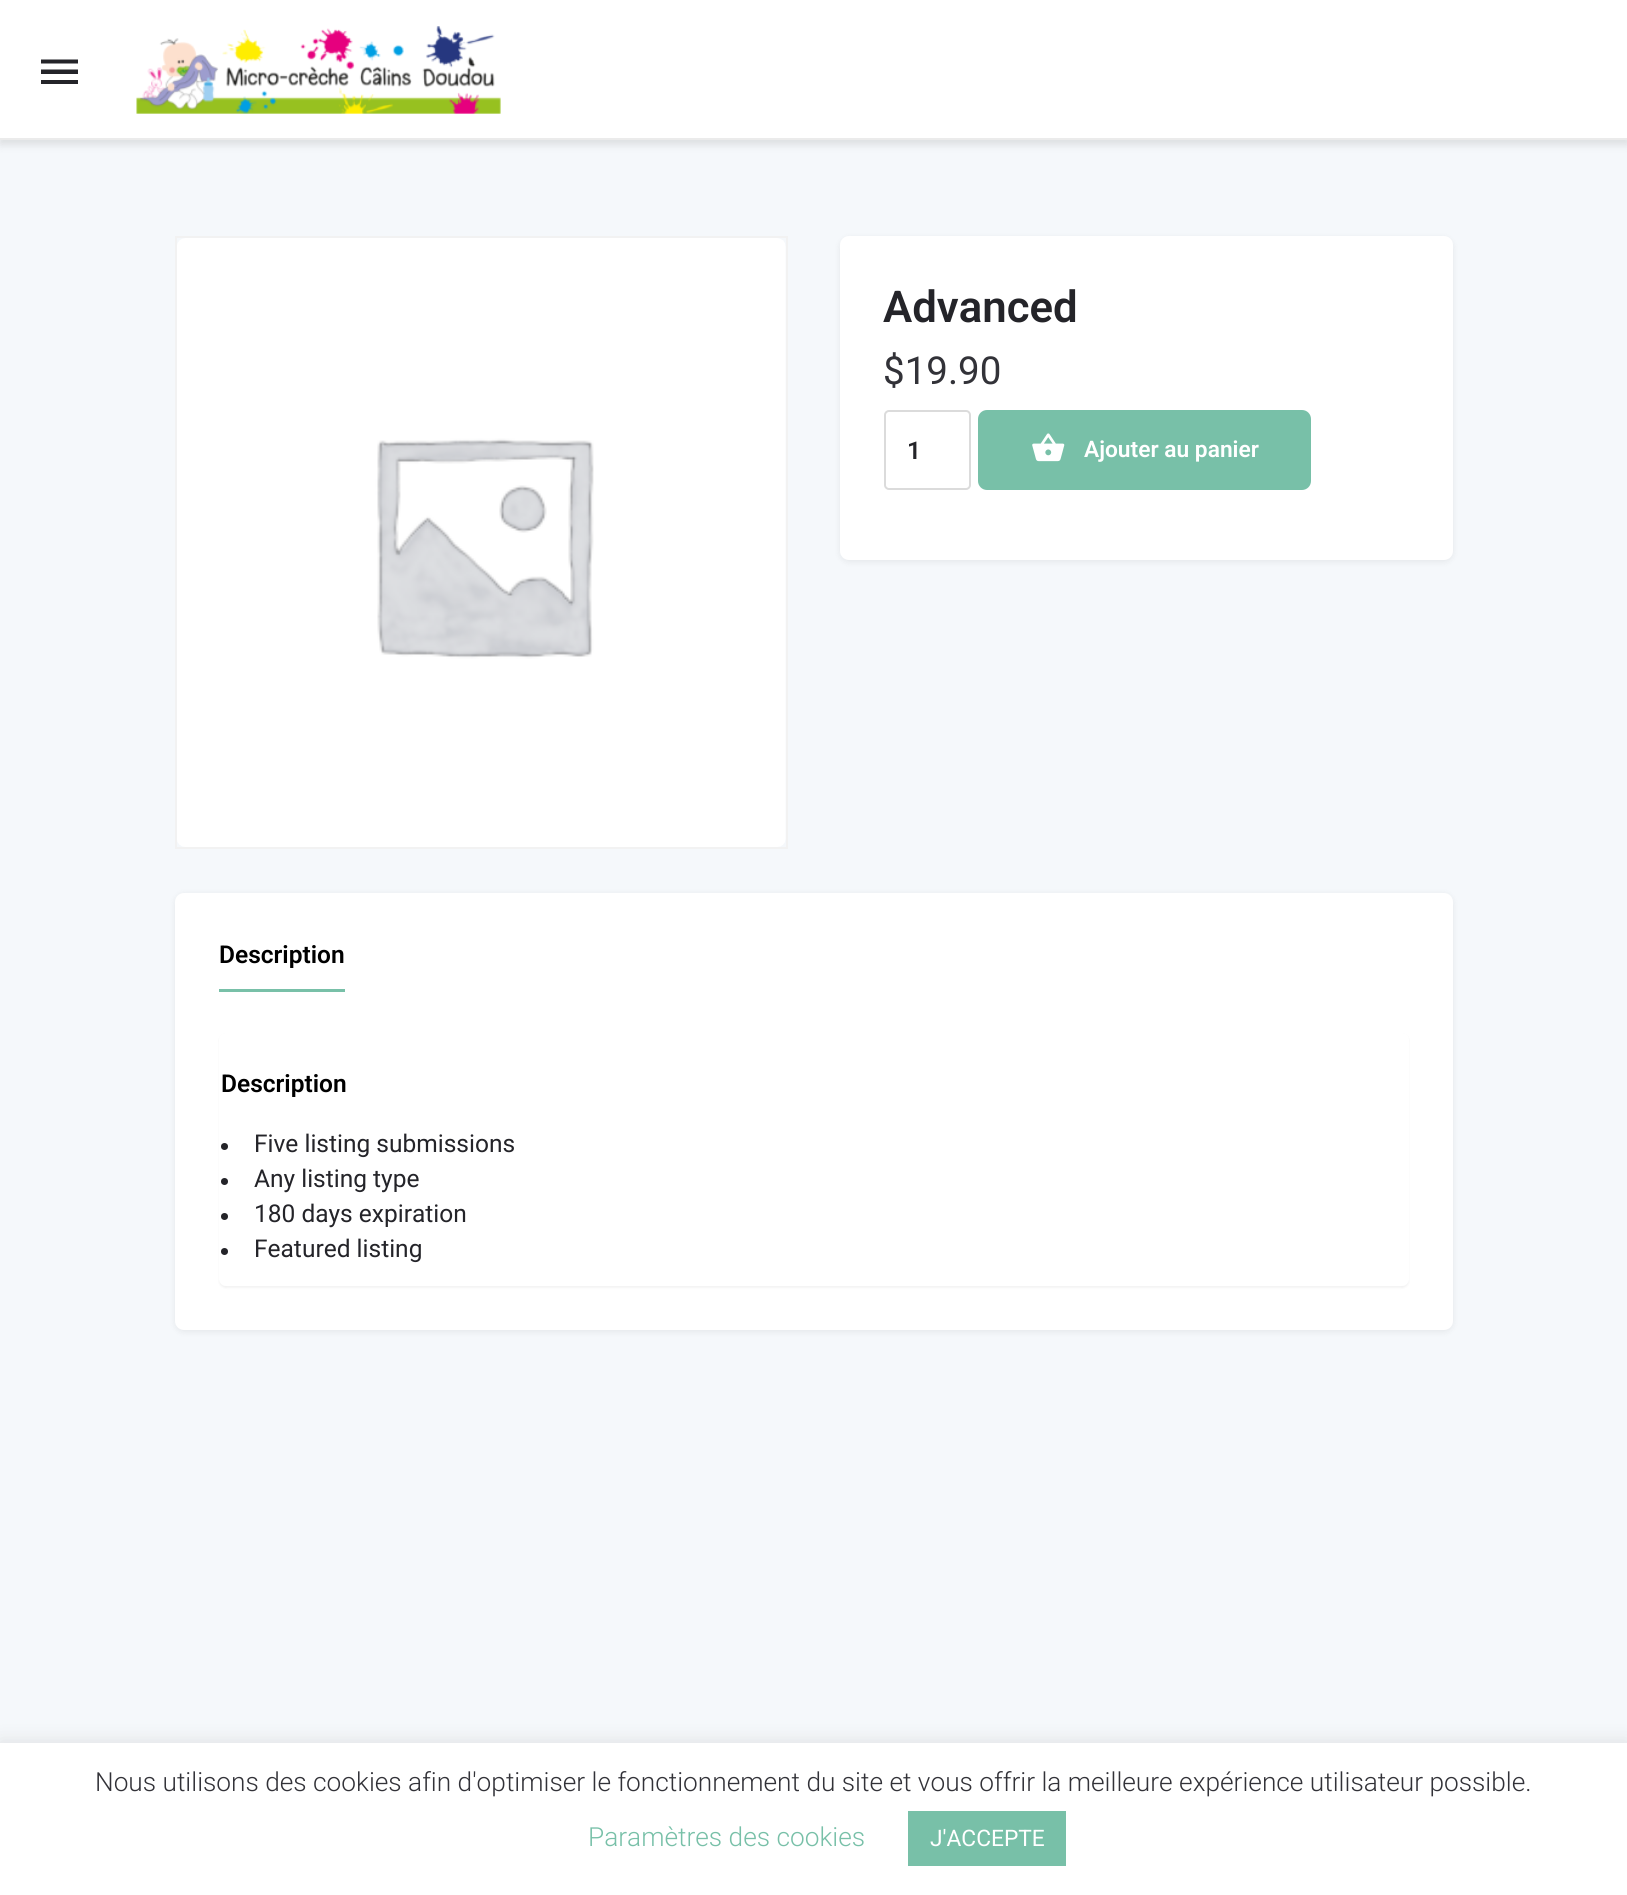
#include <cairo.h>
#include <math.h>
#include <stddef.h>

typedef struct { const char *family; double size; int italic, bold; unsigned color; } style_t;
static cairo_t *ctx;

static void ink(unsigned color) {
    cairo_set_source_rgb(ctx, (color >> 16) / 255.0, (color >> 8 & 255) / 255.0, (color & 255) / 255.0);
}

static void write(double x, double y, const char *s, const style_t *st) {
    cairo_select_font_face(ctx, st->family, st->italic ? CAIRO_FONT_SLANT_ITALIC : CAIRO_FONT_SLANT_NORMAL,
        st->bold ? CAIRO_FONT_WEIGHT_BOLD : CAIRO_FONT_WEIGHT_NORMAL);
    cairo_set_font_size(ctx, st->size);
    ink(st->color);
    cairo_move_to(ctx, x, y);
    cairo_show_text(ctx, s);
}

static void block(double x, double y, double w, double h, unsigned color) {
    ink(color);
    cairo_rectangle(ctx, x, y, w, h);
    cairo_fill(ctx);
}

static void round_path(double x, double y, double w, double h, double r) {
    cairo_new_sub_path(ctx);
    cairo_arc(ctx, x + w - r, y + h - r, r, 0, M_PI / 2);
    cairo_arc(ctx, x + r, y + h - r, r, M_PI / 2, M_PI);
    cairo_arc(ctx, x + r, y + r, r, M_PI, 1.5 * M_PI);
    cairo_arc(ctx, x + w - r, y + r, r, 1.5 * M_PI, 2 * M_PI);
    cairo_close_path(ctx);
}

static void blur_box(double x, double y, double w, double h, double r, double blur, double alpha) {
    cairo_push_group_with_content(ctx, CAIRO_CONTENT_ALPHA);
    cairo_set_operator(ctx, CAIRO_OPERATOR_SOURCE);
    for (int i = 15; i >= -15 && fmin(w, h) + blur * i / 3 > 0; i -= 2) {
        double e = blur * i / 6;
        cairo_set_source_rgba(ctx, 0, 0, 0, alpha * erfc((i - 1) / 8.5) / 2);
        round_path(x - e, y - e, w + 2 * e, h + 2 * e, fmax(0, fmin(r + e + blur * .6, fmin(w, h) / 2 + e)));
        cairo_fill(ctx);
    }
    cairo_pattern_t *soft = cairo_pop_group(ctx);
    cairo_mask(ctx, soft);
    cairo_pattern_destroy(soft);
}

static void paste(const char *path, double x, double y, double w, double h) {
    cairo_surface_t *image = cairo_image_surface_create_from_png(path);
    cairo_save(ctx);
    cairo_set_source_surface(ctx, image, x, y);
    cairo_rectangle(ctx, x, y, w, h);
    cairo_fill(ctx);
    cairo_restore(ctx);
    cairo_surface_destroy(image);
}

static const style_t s1 = {"Roboto SemiBold", 43.75, 0, 0, 0x242429};
static const style_t s2 = {"Roboto", 38.5, 0, 0, 0x323238};
static const style_t s3 = {"Roboto SemiBold", 24.5, 0, 0, 0x242429};
static const style_t s4 = {"Roboto SemiBold", 22.75, 0, 0, 0xffffff};
static const style_t s5 = {"Roboto SemiBold", 24.5, 0, 0, 0x000000};
static const style_t s6 = {"Roboto", 24.5, 0, 0, 0x242429};
static const style_t s7 = {"Roboto Light", 26.25, 0, 0, 0x323238};
static const style_t s8 = {"Roboto Light", 26.25, 0, 0, 0x78c0a8};
static const style_t s9 = {"Roboto", 22.75, 0, 0, 0xffffff};

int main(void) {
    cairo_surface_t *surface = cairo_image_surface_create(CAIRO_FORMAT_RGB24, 1627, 1895);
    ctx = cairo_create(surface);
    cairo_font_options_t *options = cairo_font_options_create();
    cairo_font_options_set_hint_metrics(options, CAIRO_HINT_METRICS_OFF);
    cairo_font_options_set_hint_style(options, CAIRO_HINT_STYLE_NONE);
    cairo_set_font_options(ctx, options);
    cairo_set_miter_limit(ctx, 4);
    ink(0xf5f8fb);
    cairo_paint(ctx);
    ink(0x000000);
    blur_box(0, 4, 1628, 140, 0, 5, 0.12);
    block(0, 0, 1627, 138, 0xffffff);
    ink(0x242429);
    cairo_new_path(ctx);
    cairo_move_to(ctx, 41, 59.5);
    cairo_line_to(ctx, 78, 59.5);
    cairo_line_to(ctx, 78, 63.5);
    cairo_line_to(ctx, 41, 63.5);
    cairo_close_path(ctx);
    cairo_move_to(ctx, 41, 74);
    cairo_line_to(ctx, 41, 69.5);
    cairo_line_to(ctx, 78, 69.5);
    cairo_line_to(ctx, 78, 74);
    cairo_close_path(ctx);
    cairo_move_to(ctx, 41, 84);
    cairo_line_to(ctx, 41, 80);
    cairo_line_to(ctx, 78, 80);
    cairo_line_to(ctx, 78, 84);
    cairo_close_path(ctx);
    cairo_fill(ctx);
    paste("pic1.png", 136, 26, 365, 88);
    block(0, 138, 1627, 2, 0xebebeb);
    cairo_rectangle(ctx, 176, 237, 611, 611);
    ink(0xf2f2f2);
    cairo_stroke(ctx);
    paste("pic2.png", 177, 238, 609, 609);
    ink(0x000000);
    blur_box(840, 238, 613, 324, 9, 3.5, 0.07);
    ink(0xffffff);
    round_path(840, 236, 613, 324, 9);
    cairo_fill(ctx);
    write(883, 322, "Advanced", &s1);
    write(883, 384, "$19.90", &s2);
    round_path(885, 411, 85, 78, 4);
    ink(0xdbdbdb);
    cairo_stroke(ctx);
    write(907, 459, "1", &s3);
    ink(0x78c0a8);
    round_path(978, 410, 333, 80, 9);
    cairo_fill(ctx);
    paste("pic3.png", 1032, 433, 33, 29);
    write(1084, 457, "Ajouter au panier", &s4);
    ink(0x000000);
    blur_box(175, 894, 1278, 438, 9, 3.5, 0.07);
    ink(0xffffff);
    round_path(175, 893, 1278, 437, 9);
    cairo_fill(ctx);
    block(219, 989, 126, 3, 0x78c0a8);
    write(219, 963, "Description", &s5);
    ink(0x000000);
    blur_box(219, 1034, 1190, 254, 7, 1, 0.05);
    ink(0xffffff);
    round_path(219, 1033, 1190, 253, 7);
    cairo_fill(ctx);
    write(221, 1092, "Description", &s5);
    ink(0x242429);
    cairo_new_path(ctx);
    cairo_arc(ctx, 224.5, 1146.5, 3.5, 0, 2 * M_PI);
    cairo_fill(ctx);
    write(254, 1152, "Five listing submissions", &s6);
    cairo_new_path(ctx);
    cairo_arc(ctx, 224.5, 1181.5, 3.5, 0, 2 * M_PI);
    cairo_fill(ctx);
    write(254, 1187, "Any listing type", &s6);
    cairo_new_path(ctx);
    cairo_arc(ctx, 224.5, 1216.5, 3.5, 0, 2 * M_PI);
    cairo_fill(ctx);
    write(254, 1222, "180 days expiration", &s6);
    cairo_new_path(ctx);
    cairo_arc(ctx, 224.5, 1251.5, 3.5, 0, 2 * M_PI);
    cairo_fill(ctx);
    write(254, 1257, "Featured listing", &s6);
    ink(0xacabab);
    blur_box(0, 1741, 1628, 153, 0, 9, 0.3);
    block(0, 1743, 1627, 152, 0xffffff);
    write(95, 1791, "Nous utilisons des cookies afin d'optimiser le fonctionnement du site et vous offrir la meilleure expérience utilisateur possible.", &s7);
    write(588, 1846, "Paramètres des cookies", &s8);
    block(908, 1811, 158, 55, 0x78c0a8);
    write(930, 1846, "J'ACCEPTE", &s9);
    cairo_surface_write_to_png(surface, "screenshot.png");
    cairo_font_options_destroy(options);
    cairo_destroy(ctx);
    cairo_surface_destroy(surface);
    return 0;
}
